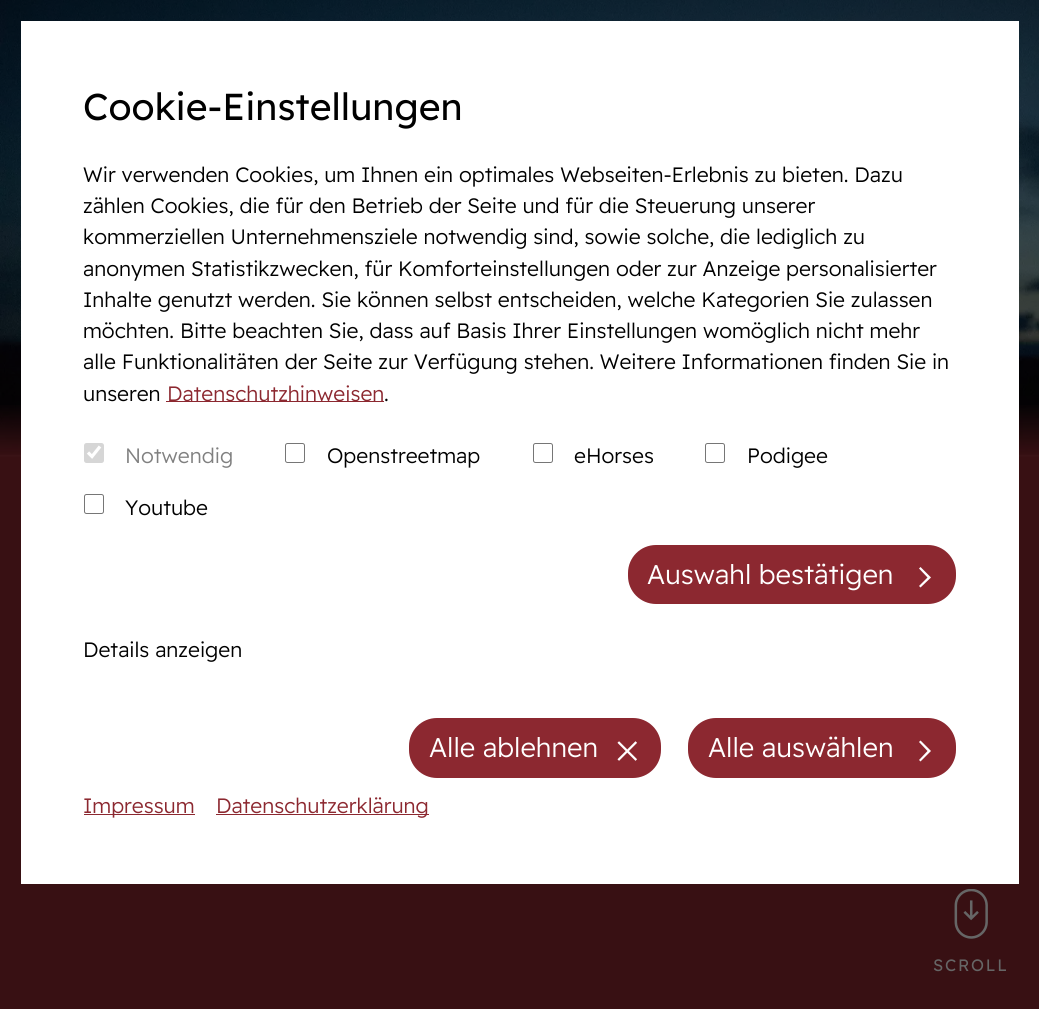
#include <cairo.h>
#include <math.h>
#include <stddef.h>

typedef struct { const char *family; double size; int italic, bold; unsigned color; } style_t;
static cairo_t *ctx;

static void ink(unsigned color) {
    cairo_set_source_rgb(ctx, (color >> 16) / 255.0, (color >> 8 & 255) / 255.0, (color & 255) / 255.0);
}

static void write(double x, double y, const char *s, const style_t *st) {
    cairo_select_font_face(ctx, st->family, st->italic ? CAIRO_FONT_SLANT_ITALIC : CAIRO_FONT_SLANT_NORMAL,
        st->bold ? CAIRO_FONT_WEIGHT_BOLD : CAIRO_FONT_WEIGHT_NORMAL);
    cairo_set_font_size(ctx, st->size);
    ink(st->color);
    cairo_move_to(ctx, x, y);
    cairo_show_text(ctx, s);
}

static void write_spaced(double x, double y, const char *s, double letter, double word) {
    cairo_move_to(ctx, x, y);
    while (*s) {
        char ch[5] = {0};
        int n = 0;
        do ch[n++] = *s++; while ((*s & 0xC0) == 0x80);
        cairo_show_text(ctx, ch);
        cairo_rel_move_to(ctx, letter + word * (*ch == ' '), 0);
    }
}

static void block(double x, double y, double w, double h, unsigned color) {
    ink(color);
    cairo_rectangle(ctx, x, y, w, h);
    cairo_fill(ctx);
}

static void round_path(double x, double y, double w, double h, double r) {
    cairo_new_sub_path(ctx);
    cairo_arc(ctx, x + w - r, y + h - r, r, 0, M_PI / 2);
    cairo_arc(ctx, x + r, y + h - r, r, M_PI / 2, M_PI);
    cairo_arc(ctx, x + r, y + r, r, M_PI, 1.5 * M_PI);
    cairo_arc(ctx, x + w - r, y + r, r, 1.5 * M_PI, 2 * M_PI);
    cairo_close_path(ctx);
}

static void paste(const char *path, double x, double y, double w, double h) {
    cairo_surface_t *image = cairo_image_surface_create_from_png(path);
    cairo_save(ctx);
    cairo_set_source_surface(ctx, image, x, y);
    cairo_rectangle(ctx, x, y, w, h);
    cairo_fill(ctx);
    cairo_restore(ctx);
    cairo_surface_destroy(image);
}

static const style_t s1 = {"Readex Pro", 37.5, 0, 0, 0x000000};
static const style_t s2 = {"Readex Pro Light", 20.8, 0, 0, 0x000000};
static const style_t s3 = {"Readex Pro Light", 20.8, 0, 0, 0x8c2830};
static const style_t s4 = {"Readex Pro Light", 20.8, 0, 0, 0x808080};
static const style_t s5 = {"Readex Pro Light", 27, 0, 0, 0xffffff};

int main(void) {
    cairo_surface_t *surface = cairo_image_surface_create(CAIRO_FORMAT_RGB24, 1039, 1009);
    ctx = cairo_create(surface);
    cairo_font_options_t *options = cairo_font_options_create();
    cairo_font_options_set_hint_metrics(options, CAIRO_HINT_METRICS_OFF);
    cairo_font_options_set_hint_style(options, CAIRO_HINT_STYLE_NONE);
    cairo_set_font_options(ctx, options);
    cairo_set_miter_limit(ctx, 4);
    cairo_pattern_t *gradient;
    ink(0x666666);
    cairo_paint(ctx);
    paste("pic2.png", 0, 0, 1039, 455);
    gradient = cairo_pattern_create_linear(520, 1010, 520, 403);
    cairo_pattern_add_color_stop_rgba(gradient, 0.91, 0.22, 0.063, 0.075, 1);
    cairo_pattern_add_color_stop_rgba(gradient, 1, 0.22, 0.063, 0.075, 0);
    cairo_set_source(ctx, gradient);
    cairo_pattern_destroy(gradient);
    cairo_rectangle(ctx, 0, 405, 1039, 604);
    cairo_fill(ctx);
    block(21, 21, 998, 863, 0xffffff);
    write(83, 120, "Cookie-Einstellungen", &s1);
    write(83, 182, "Wir verwenden Cookies, um Ihnen ein optimales Webseiten-Erlebnis zu bieten. Dazu", &s2);
    write(83, 213, "zählen Cookies, die für den Betrieb der Seite und für die Steuerung unserer", &s2);
    write(83, 244, "kommerziellen Unternehmensziele notwendig sind, sowie solche, die lediglich zu", &s2);
    write(83, 276, "anonymen Statistikzwecken, für Komforteinstellungen oder zur Anzeige personalisierter", &s2);
    write(83, 307, "Inhalte genutzt werden. Sie können selbst entscheiden, welche Kategorien Sie zulassen", &s2);
    write(83, 338, "möchten. Bitte beachten Sie, dass auf Basis Ihrer Einstellungen womöglich nicht mehr", &s2);
    write(83, 369, "alle Funktionalitäten der Seite zur Verfügung stehen. Weitere Informationen finden Sie in", &s2);
    write(83, 401, "unseren", &s2);
    block(166, 401, 218, 1, 0x8c2830);
    write(167, 401, "Datenschutzhinweisen", &s3);
    write(384, 401, ".", &s2);
    ink(0xd6d6d6);
    round_path(84, 443, 20, 20, 2.5);
    cairo_fill(ctx);
    cairo_new_path(ctx);
    cairo_move_to(ctx, 88, 452.5);
    cairo_line_to(ctx, 92, 456.5);
    cairo_line_to(ctx, 100, 446.5);
    ink(0xffffff);
    cairo_set_line_width(ctx, 3.2);
    cairo_stroke(ctx);
    write(125, 463, "Notwendig", &s4);
    round_path(285.5, 443.5, 19, 19, 2);
    ink(0x767676);
    cairo_set_line_width(ctx, 1);
    cairo_stroke(ctx);
    write(327, 463, "Openstreetmap", &s2);
    round_path(533.5, 443.5, 19, 19, 2);
    ink(0x767676);
    cairo_stroke(ctx);
    write(574, 463, "eHorses", &s2);
    round_path(705.5, 443.5, 19, 19, 2);
    ink(0x767676);
    cairo_stroke(ctx);
    write(747, 463, "Podigee", &s2);
    round_path(84.5, 494.5, 19, 19, 2);
    ink(0x767676);
    cairo_stroke(ctx);
    write(125, 515, "Youtube", &s2);
    ink(0x8c2830);
    round_path(628, 545, 328, 59, 28);
    cairo_fill(ctx);
    write(647, 584, "Auswahl bestätigen", &s5);
    cairo_new_path(ctx);
    cairo_move_to(ctx, 920.5, 567);
    cairo_line_to(ctx, 919, 568.5);
    cairo_line_to(ctx, 927.5, 577.5);
    cairo_line_to(ctx, 919, 586);
    cairo_line_to(ctx, 920.5, 587.5);
    cairo_line_to(ctx, 931, 577.5);
    cairo_close_path(ctx);
    cairo_fill(ctx);
    write(83, 657, "Details anzeigen", &s2);
    ink(0x8c2830);
    round_path(409, 718, 252, 60, 28);
    cairo_fill(ctx);
    write(429, 757, "Alle ablehnen", &s5);
    paste("pic1.png", 617, 741, 20, 20);
    ink(0x8c2830);
    round_path(688, 718, 268, 60, 28);
    cairo_fill(ctx);
    write(708, 757, "Alle auswählen", &s5);
    cairo_new_path(ctx);
    cairo_move_to(ctx, 920.5, 740.5);
    cairo_line_to(ctx, 919, 742);
    cairo_line_to(ctx, 927.5, 751);
    cairo_line_to(ctx, 919, 760);
    cairo_line_to(ctx, 920.5, 761.5);
    cairo_line_to(ctx, 931, 751);
    cairo_close_path(ctx);
    cairo_fill(ctx);
    block(84, 814, 111, 1, 0x8c2830);
    write(83, 813, "Impressum", &s3);
    block(216, 814, 213, 1, 0x8c2830);
    write(216, 813, "Datenschutzerklärung", &s3);
    paste("pic3.png", 954, 889, 34, 50);
    cairo_select_font_face(ctx, "Readex Pro", CAIRO_FONT_SLANT_NORMAL, CAIRO_FONT_WEIGHT_NORMAL);
    cairo_set_font_size(ctx, 16.5);
    ink(0x666666);
    write_spaced(933, 971, "SCROLL", 1.75, 0);
    cairo_surface_write_to_png(surface, "screenshot.png");
    cairo_font_options_destroy(options);
    cairo_destroy(ctx);
    cairo_surface_destroy(surface);
    return 0;
}
